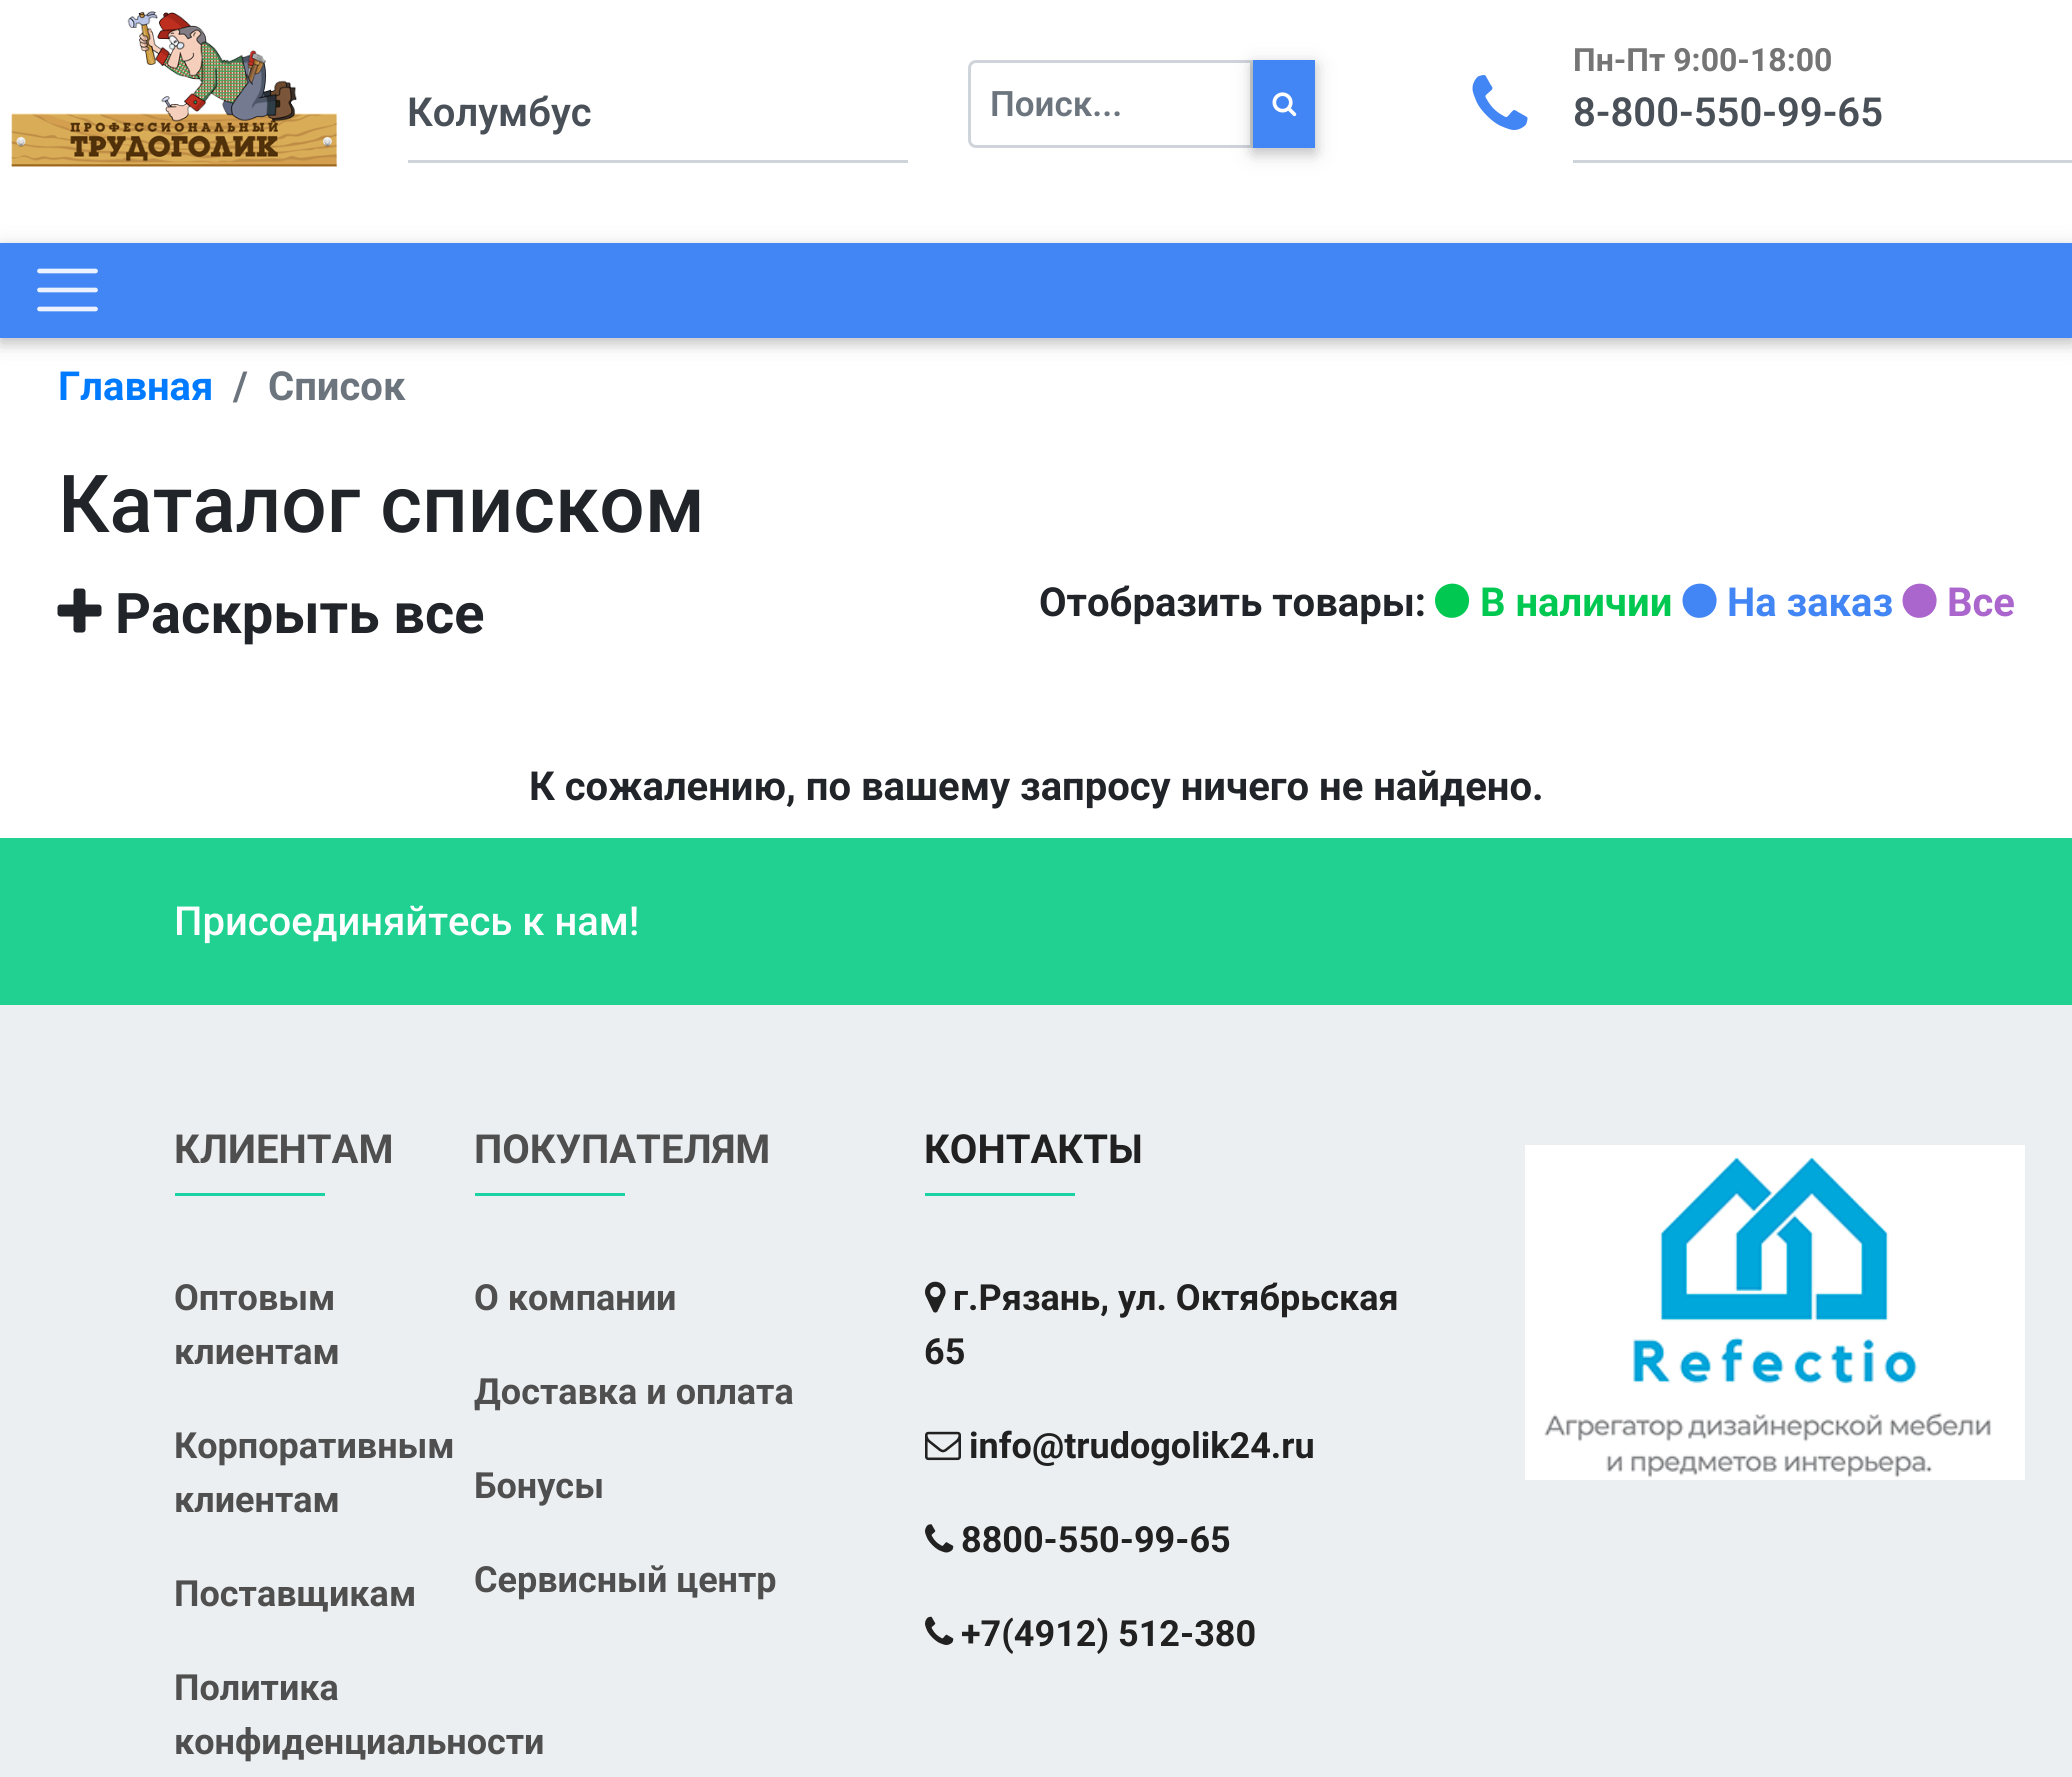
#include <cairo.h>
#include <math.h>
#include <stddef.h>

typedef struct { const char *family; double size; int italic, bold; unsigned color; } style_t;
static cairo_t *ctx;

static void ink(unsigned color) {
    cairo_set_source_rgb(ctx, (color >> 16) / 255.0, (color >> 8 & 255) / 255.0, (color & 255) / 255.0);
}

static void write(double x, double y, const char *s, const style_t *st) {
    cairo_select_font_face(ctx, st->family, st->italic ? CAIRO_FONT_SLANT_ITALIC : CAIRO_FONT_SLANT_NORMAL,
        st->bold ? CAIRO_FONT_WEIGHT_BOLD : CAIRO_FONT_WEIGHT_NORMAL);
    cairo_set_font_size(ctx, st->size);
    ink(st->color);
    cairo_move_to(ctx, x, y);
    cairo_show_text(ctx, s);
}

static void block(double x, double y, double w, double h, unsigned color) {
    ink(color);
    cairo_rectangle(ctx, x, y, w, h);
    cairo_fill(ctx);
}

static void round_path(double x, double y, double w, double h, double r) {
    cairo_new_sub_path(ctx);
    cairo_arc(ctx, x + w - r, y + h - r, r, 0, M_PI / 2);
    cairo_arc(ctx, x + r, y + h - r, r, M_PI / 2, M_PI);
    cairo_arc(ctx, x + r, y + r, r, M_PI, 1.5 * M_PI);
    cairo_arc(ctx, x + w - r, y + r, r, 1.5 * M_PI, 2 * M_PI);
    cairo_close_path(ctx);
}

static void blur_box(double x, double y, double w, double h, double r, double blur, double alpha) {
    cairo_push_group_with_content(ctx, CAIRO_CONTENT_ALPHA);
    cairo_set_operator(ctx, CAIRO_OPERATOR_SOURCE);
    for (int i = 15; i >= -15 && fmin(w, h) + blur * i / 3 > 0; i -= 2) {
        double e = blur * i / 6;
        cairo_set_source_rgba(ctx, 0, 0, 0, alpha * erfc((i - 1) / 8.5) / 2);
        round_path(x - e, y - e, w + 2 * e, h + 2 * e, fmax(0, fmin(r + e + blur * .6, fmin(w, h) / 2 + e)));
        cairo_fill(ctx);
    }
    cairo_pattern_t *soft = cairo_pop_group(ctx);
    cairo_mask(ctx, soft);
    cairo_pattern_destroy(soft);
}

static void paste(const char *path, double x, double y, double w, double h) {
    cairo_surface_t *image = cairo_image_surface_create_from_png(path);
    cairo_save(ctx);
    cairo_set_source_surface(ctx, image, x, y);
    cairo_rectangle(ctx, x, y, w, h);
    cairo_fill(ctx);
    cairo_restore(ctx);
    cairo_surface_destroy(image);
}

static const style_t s1 = {"Roboto SemiBold", 40, 0, 0, 0x495057};
static const style_t s2 = {"Roboto SemiBold", 35, 0, 0, 0x6c757d};
static const style_t s3 = {"Roboto", 32, 0, 1, 0x757575};
static const style_t s4 = {"Roboto", 40, 0, 1, 0x007bff};
static const style_t s5 = {"Roboto", 40, 0, 1, 0x6c757d};
static const style_t s6 = {"Roboto Medium", 80, 0, 0, 0x212529};
static const style_t s7 = {"Roboto", 56, 0, 1, 0x212529};
static const style_t s8 = {"Roboto", 40, 0, 1, 0x212529};
static const style_t s9 = {"Roboto", 40, 0, 1, 0x00c851};
static const style_t s10 = {"Roboto", 40, 0, 1, 0x4285f4};
static const style_t s11 = {"Roboto", 40, 0, 1, 0xaa66cc};
static const style_t s12 = {"Roboto Medium", 40, 0, 0, 0xffffff};
static const style_t s13 = {"Roboto", 40, 0, 1, 0x4f4f4f};
static const style_t s14 = {"Roboto", 36, 0, 1, 0x4f4f4f};
static const style_t s15 = {"Roboto", 40, 0, 1, 0x212121};
static const style_t s16 = {"Roboto", 36, 0, 1, 0x212121};

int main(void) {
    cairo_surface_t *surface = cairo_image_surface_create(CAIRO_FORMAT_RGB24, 2072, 1777);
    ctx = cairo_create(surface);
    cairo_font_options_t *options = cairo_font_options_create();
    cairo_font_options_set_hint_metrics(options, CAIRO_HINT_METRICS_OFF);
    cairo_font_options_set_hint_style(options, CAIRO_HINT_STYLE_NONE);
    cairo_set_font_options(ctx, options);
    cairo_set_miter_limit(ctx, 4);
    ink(0xffffff);
    cairo_paint(ctx);
    cairo_save(ctx);
    cairo_set_fill_rule(ctx, CAIRO_FILL_RULE_EVEN_ODD);
    cairo_new_path(ctx);
    cairo_move_to(ctx, 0, 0);
    cairo_line_to(ctx, 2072, 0);
    cairo_line_to(ctx, 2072, 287);
    cairo_line_to(ctx, 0, 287);
    cairo_close_path(ctx);
    cairo_move_to(ctx, 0, 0);
    cairo_line_to(ctx, 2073, 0);
    cairo_line_to(ctx, 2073, 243);
    cairo_line_to(ctx, 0, 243);
    cairo_close_path(ctx);
    cairo_clip(ctx);
    ink(0x000000);
    blur_box(0, 5, 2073, 243, 0, 12.5, 0.12);
    cairo_restore(ctx);
    cairo_save(ctx);
    cairo_set_fill_rule(ctx, CAIRO_FILL_RULE_EVEN_ODD);
    cairo_new_path(ctx);
    cairo_move_to(ctx, 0, 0);
    cairo_line_to(ctx, 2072, 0);
    cairo_line_to(ctx, 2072, 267);
    cairo_line_to(ctx, 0, 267);
    cairo_close_path(ctx);
    cairo_move_to(ctx, 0, 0);
    cairo_line_to(ctx, 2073, 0);
    cairo_line_to(ctx, 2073, 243);
    cairo_line_to(ctx, 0, 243);
    cairo_close_path(ctx);
    cairo_clip(ctx);
    ink(0x000000);
    blur_box(0, 5, 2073, 243, 0, 6, 0.16);
    cairo_restore(ctx);
    paste("pic1.png", 11, 11, 327, 156);
    block(408, 160, 500, 3, 0xced4da);
    write(407, 126, "Колумбус", &s1);
    cairo_new_path(ctx);
    cairo_move_to(ctx, 976, 61.5);
    cairo_line_to(ctx, 1251.5, 61.5);
    cairo_line_to(ctx, 1251.5, 146.5);
    cairo_line_to(ctx, 976, 146.5);
    cairo_curve_to(ctx, 972.5, 146.5, 969.5, 143.5, 969.5, 140);
    cairo_line_to(ctx, 969.5, 68);
    cairo_curve_to(ctx, 969.5, 64.5, 972.5, 61.5, 976, 61.5);
    cairo_close_path(ctx);
    ink(0xced4da);
    cairo_set_line_width(ctx, 3);
    cairo_stroke(ctx);
    write(990, 116, "Поиск...", &s2);
    ink(0x000000);
    blur_box(1253, 65, 62, 88, 0, 12.5, 0.12);
    blur_box(1253, 65, 62, 88, 0, 6, 0.16);
    block(1253, 60, 62, 88, 0x4285f4);
    paste("pic2.png", 1272, 92, 25, 25);
    write(1573, 71, "Пн-Пт 9:00-18:00", &s3);
    paste("pic3.png", 1472, 75, 56, 55);
    block(1573, 160, 499, 3, 0xced4da);
    write(1573, 126, "8-800-550-99-65", &s1);
    ink(0x000000);
    blur_box(0, 248, 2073, 95, 0, 12.5, 0.12);
    blur_box(0, 248, 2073, 95, 0, 6, 0.16);
    block(0, 243, 2072, 95, 0x4285f4);
    cairo_new_path(ctx);
    cairo_move_to(ctx, 39.5, 271);
    cairo_line_to(ctx, 95.5, 271);
    cairo_move_to(ctx, 39.5, 290);
    cairo_line_to(ctx, 95.5, 290);
    cairo_move_to(ctx, 39.5, 309);
    cairo_line_to(ctx, 95.5, 309);
    ink(0xecf3fe);
    cairo_set_line_width(ctx, 4.7);
    cairo_set_line_cap(ctx, CAIRO_LINE_CAP_ROUND);
    cairo_stroke(ctx);
    write(58, 400, "Главная", &s4);
    write(233, 400, "/", &s5);
    write(268, 400, "Список", &s5);
    write(58, 532, "Каталог списком", &s6);
    paste("pic4.png", 57, 588, 45, 45);
    write(115, 633, "Раскрыть все", &s7);
    write(1039, 616, "Отобразить товары:", &s8);
    ink(0x00c851);
    cairo_new_path(ctx);
    cairo_move_to(ctx, 1467, 592);
    cairo_curve_to(ctx, 1468.5, 595, 1469.5, 598.5, 1469, 602);
    cairo_curve_to(ctx, 1468, 618.5, 1445.5, 624, 1437.5, 609.5);
    cairo_curve_to(ctx, 1435.5, 606.5, 1435, 603, 1435, 599.5);
    cairo_curve_to(ctx, 1436, 583, 1458.5, 577.5, 1467, 592);
    cairo_close_path(ctx);
    cairo_fill(ctx);
    write(1480, 616, "В наличии", &s9);
    ink(0x4285f4);
    cairo_new_path(ctx);
    cairo_move_to(ctx, 1714.5, 592);
    cairo_curve_to(ctx, 1716, 595, 1717, 598.5, 1716.5, 602);
    cairo_curve_to(ctx, 1715.5, 618.5, 1693, 624, 1685, 609.5);
    cairo_curve_to(ctx, 1683, 606.5, 1682.5, 603, 1682.5, 599.5);
    cairo_curve_to(ctx, 1683.5, 583, 1706, 577.5, 1714.5, 592);
    cairo_close_path(ctx);
    cairo_fill(ctx);
    write(1727, 616, "На заказ", &s10);
    ink(0xaa66cc);
    cairo_new_path(ctx);
    cairo_move_to(ctx, 1934.5, 592);
    cairo_curve_to(ctx, 1936, 595, 1937, 598.5, 1936.5, 602);
    cairo_curve_to(ctx, 1935.5, 618.5, 1913, 624, 1905, 609.5);
    cairo_curve_to(ctx, 1903, 606.5, 1902.5, 603, 1902.5, 599.5);
    cairo_curve_to(ctx, 1903.5, 583, 1926, 577.5, 1934.5, 592);
    cairo_close_path(ctx);
    cairo_fill(ctx);
    write(1947, 616, "Все", &s11);
    write(529, 800, "К сожалению, по вашему запросу ничего не найдено.", &s8);
    block(0, 1005, 2072, 772, 0xeceff1);
    block(0, 838, 2072, 167, 0x21d192);
    write(174, 935, "Присоединяйтесь к нам!", &s12);
    write(174, 1163, "КЛИЕНТАМ", &s13);
    block(175, 1193, 150, 3, 0x1ad2a4);
    write(174, 1310, "Оптовым", &s14);
    write(174, 1364, "клиентам", &s14);
    write(174, 1458, "Корпоративным", &s14);
    write(174, 1512, "клиентам", &s14);
    write(174, 1606, "Поставщикам", &s14);
    write(174, 1700, "Политика", &s14);
    write(174, 1754, "конфиденциальности", &s14);
    write(474, 1163, "ПОКУПАТЕЛЯМ", &s13);
    block(475, 1193, 150, 3, 0x1ad2a4);
    write(474, 1310, "О компании", &s14);
    write(474, 1404, "Доставка и оплата", &s14);
    write(474, 1498, "Бонусы", &s14);
    write(474, 1592, "Сервисный центр", &s14);
    write(924, 1163, "КОНТАКТЫ", &s15);
    block(925, 1193, 150, 3, 0x1ad2a4);
    paste("pic5.png", 925, 1281, 21, 32);
    write(953, 1310, "г.Рязань, ул. Октябрьская", &s16);
    write(924, 1364, "65", &s16);
    paste("pic6.png", 925, 1431, 36, 30);
    write(969, 1458, "info@trudogolik24.ru", &s16);
    paste("pic7.png", 925, 1524, 29, 29);
    write(961, 1552, "8800-550-99-65", &s16);
    paste("pic8.png", 925, 1616, 29, 29);
    write(961, 1646, "+7(4912) 512-380", &s16);
    paste("pic9.png", 1525, 1145, 500, 335);
    cairo_surface_write_to_png(surface, "screenshot.png");
    cairo_font_options_destroy(options);
    cairo_destroy(ctx);
    cairo_surface_destroy(surface);
    return 0;
}
